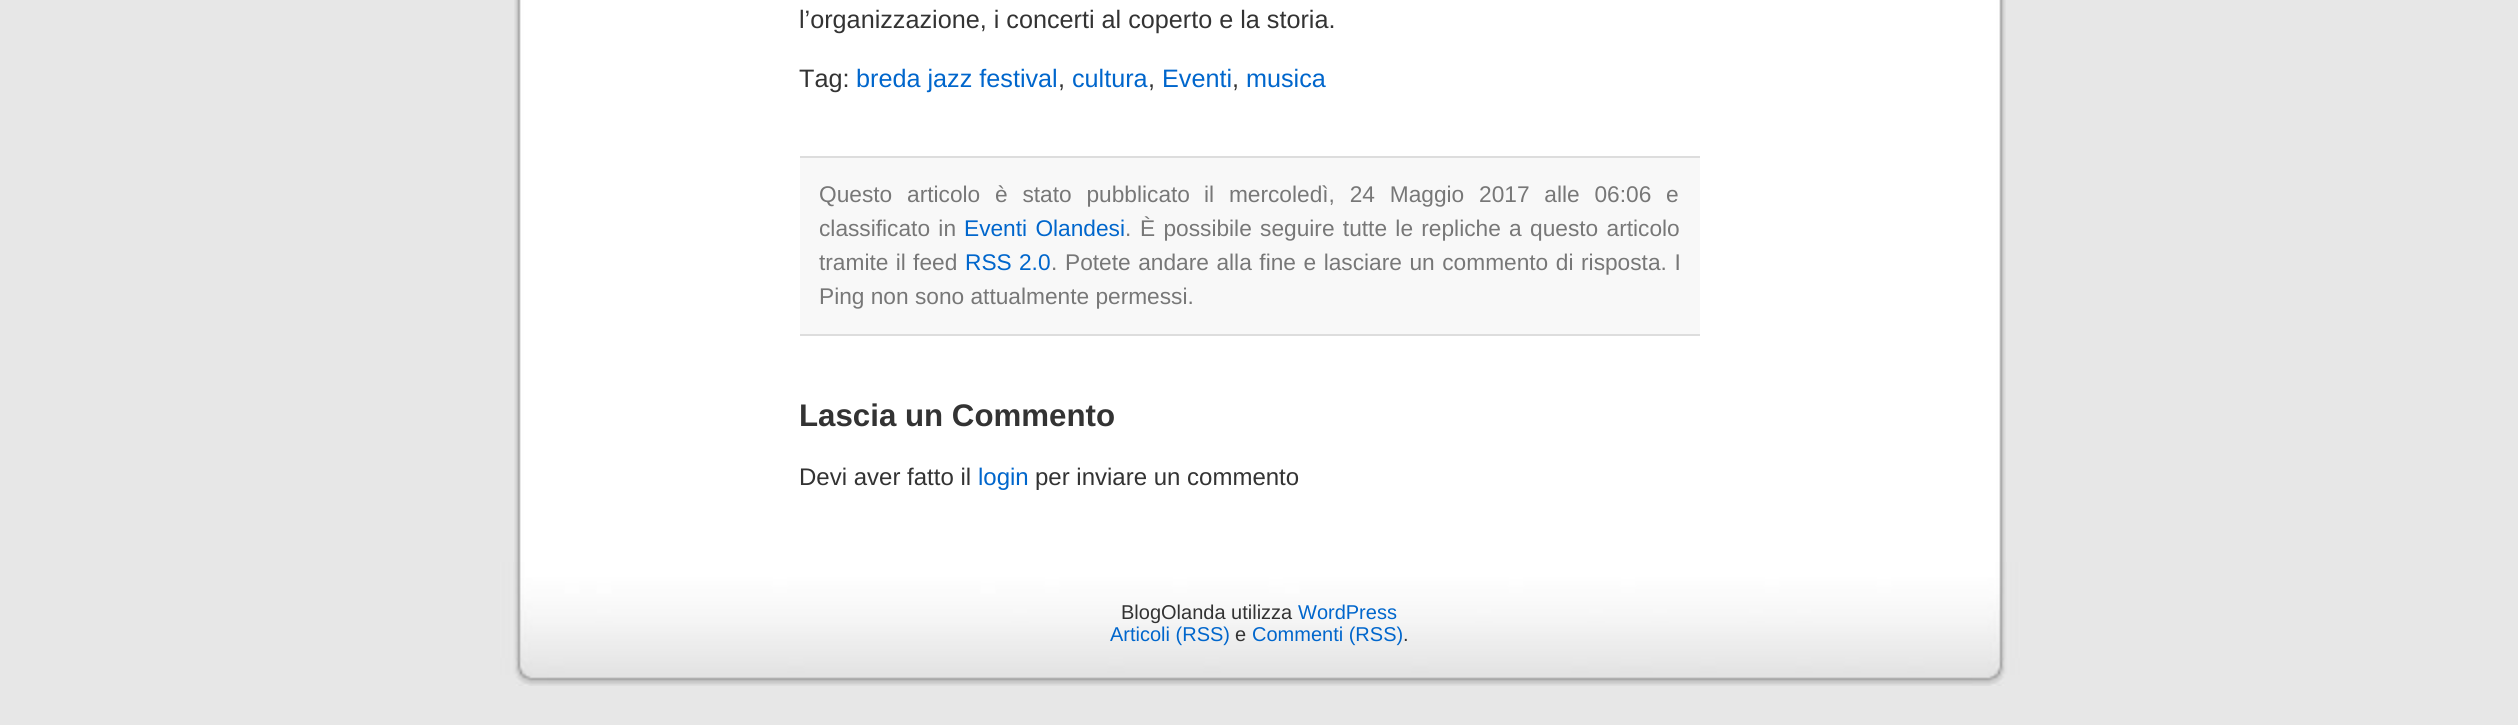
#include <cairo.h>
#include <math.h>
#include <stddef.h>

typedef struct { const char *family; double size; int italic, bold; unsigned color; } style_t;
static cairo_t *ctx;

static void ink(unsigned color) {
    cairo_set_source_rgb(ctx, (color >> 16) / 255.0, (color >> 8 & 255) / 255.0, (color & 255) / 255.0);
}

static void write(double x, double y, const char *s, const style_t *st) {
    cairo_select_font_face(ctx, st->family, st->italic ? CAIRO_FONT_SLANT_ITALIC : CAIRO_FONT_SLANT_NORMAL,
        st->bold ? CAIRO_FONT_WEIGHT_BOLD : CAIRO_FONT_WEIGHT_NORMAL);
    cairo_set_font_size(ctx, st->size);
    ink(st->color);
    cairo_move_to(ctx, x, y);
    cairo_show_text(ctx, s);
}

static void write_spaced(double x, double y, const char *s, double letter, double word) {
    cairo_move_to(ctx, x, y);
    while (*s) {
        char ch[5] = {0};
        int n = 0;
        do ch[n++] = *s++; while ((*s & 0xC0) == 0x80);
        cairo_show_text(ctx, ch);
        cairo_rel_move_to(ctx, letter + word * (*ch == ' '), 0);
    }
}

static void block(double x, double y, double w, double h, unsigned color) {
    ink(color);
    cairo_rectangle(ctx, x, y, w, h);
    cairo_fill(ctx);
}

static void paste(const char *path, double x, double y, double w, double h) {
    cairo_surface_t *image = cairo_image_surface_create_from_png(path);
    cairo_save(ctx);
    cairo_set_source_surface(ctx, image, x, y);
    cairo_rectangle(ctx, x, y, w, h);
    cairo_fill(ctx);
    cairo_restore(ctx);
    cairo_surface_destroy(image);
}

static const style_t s1 = {"Liberation Sans", 25.2, 0, 0, 0x333333};
static const style_t s2 = {"Liberation Sans", 25.2, 0, 0, 0x0066cc};
static const style_t s3 = {"Liberation Sans", 22.7, 0, 0, 0x777777};
static const style_t s4 = {"Liberation Sans", 31.25, 0, 1, 0x333333};
static const style_t s5 = {"Liberation Sans", 24, 0, 0, 0x333333};
static const style_t s6 = {"Liberation Sans", 24, 0, 0, 0x0066cc};
static const style_t s7 = {"Liberation Sans", 20, 0, 0, 0x333333};
static const style_t s8 = {"Liberation Sans", 20, 0, 0, 0x0066cc};

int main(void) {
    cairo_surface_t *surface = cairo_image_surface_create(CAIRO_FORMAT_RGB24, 2518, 725);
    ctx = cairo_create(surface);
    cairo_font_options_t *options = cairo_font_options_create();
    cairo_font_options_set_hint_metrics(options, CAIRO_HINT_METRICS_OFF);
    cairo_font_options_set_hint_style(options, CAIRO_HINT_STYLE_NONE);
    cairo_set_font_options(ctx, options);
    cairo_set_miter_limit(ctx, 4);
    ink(0xe7e7e7);
    cairo_paint(ctx);
    paste("pic1.png", 514, 0, 1492, 562);
    write(799, 28, "l’organizzazione, i concerti al coperto e la storia.", &s1);
    write(799, 87, "Tag:", &s1);
    write(856, 87, "breda jazz festival", &s2);
    write(1058, 87, ",", &s1);
    write(1072, 87, "cultura", &s2);
    write(1148, 87, ",", &s1);
    write(1162, 87, "Eventi", &s2);
    write(1232, 87, ",", &s1);
    write(1246, 87, "musica", &s2);
    block(800, 158, 900, 176, 0xf8f8f8);
    block(800, 156, 900, 2, 0xdddddd);
    block(800, 334, 900, 2, 0xdddddd);
    cairo_set_font_size(ctx, 22.7);
    ink(0x777777);
    write_spaced(819, 202, "Questo articolo è stato pubblicato", 0, 8.5);
    write_spaced(1204, 202, "il mercoledì, 24 Maggio 2017 alle 06:06 e", 0, 8.5);
    write_spaced(819, 236, "classificato in", 0, 2);
    ink(0x0066cc);
    write_spaced(964, 236, "Eventi Olandesi", 0, 2);
    write(1125, 236, ".", &s3);
    write_spaced(1140, 236, "È possibile seguire tutte le repliche a questo articolo", 0, 2);
    write_spaced(819, 270, "tramite il feed", 0, 1);
    ink(0x0066cc);
    write_spaced(965, 270, "RSS 2.0", 0, 1);
    write(1051, 270, ".", &s3);
    write_spaced(1065, 270, "Potete andare alla fine e lasciare un commento di risposta. I", 0, 1.25);
    write(819, 304, "Ping non sono attualmente permessi.", &s3);
    write(799, 426, "Lascia un Commento", &s4);
    write(799, 485, "Devi aver fatto il", &s5);
    write(978, 485, "login", &s6);
    write(1035, 485, "per inviare un commento", &s5);
    paste("pic2.png", 500, 562, 1520, 124);
    write(1121, 619, "BlogOlanda utilizza", &s7);
    write(1298, 619, "WordPress", &s8);
    write(1110, 641, "Articoli (RSS)", &s8);
    write(1235, 641, "e", &s7);
    write(1252, 641, "Commenti (RSS)", &s8);
    write(1403, 641, ".", &s7);
    cairo_surface_write_to_png(surface, "screenshot.png");
    cairo_font_options_destroy(options);
    cairo_destroy(ctx);
    cairo_surface_destroy(surface);
    return 0;
}
